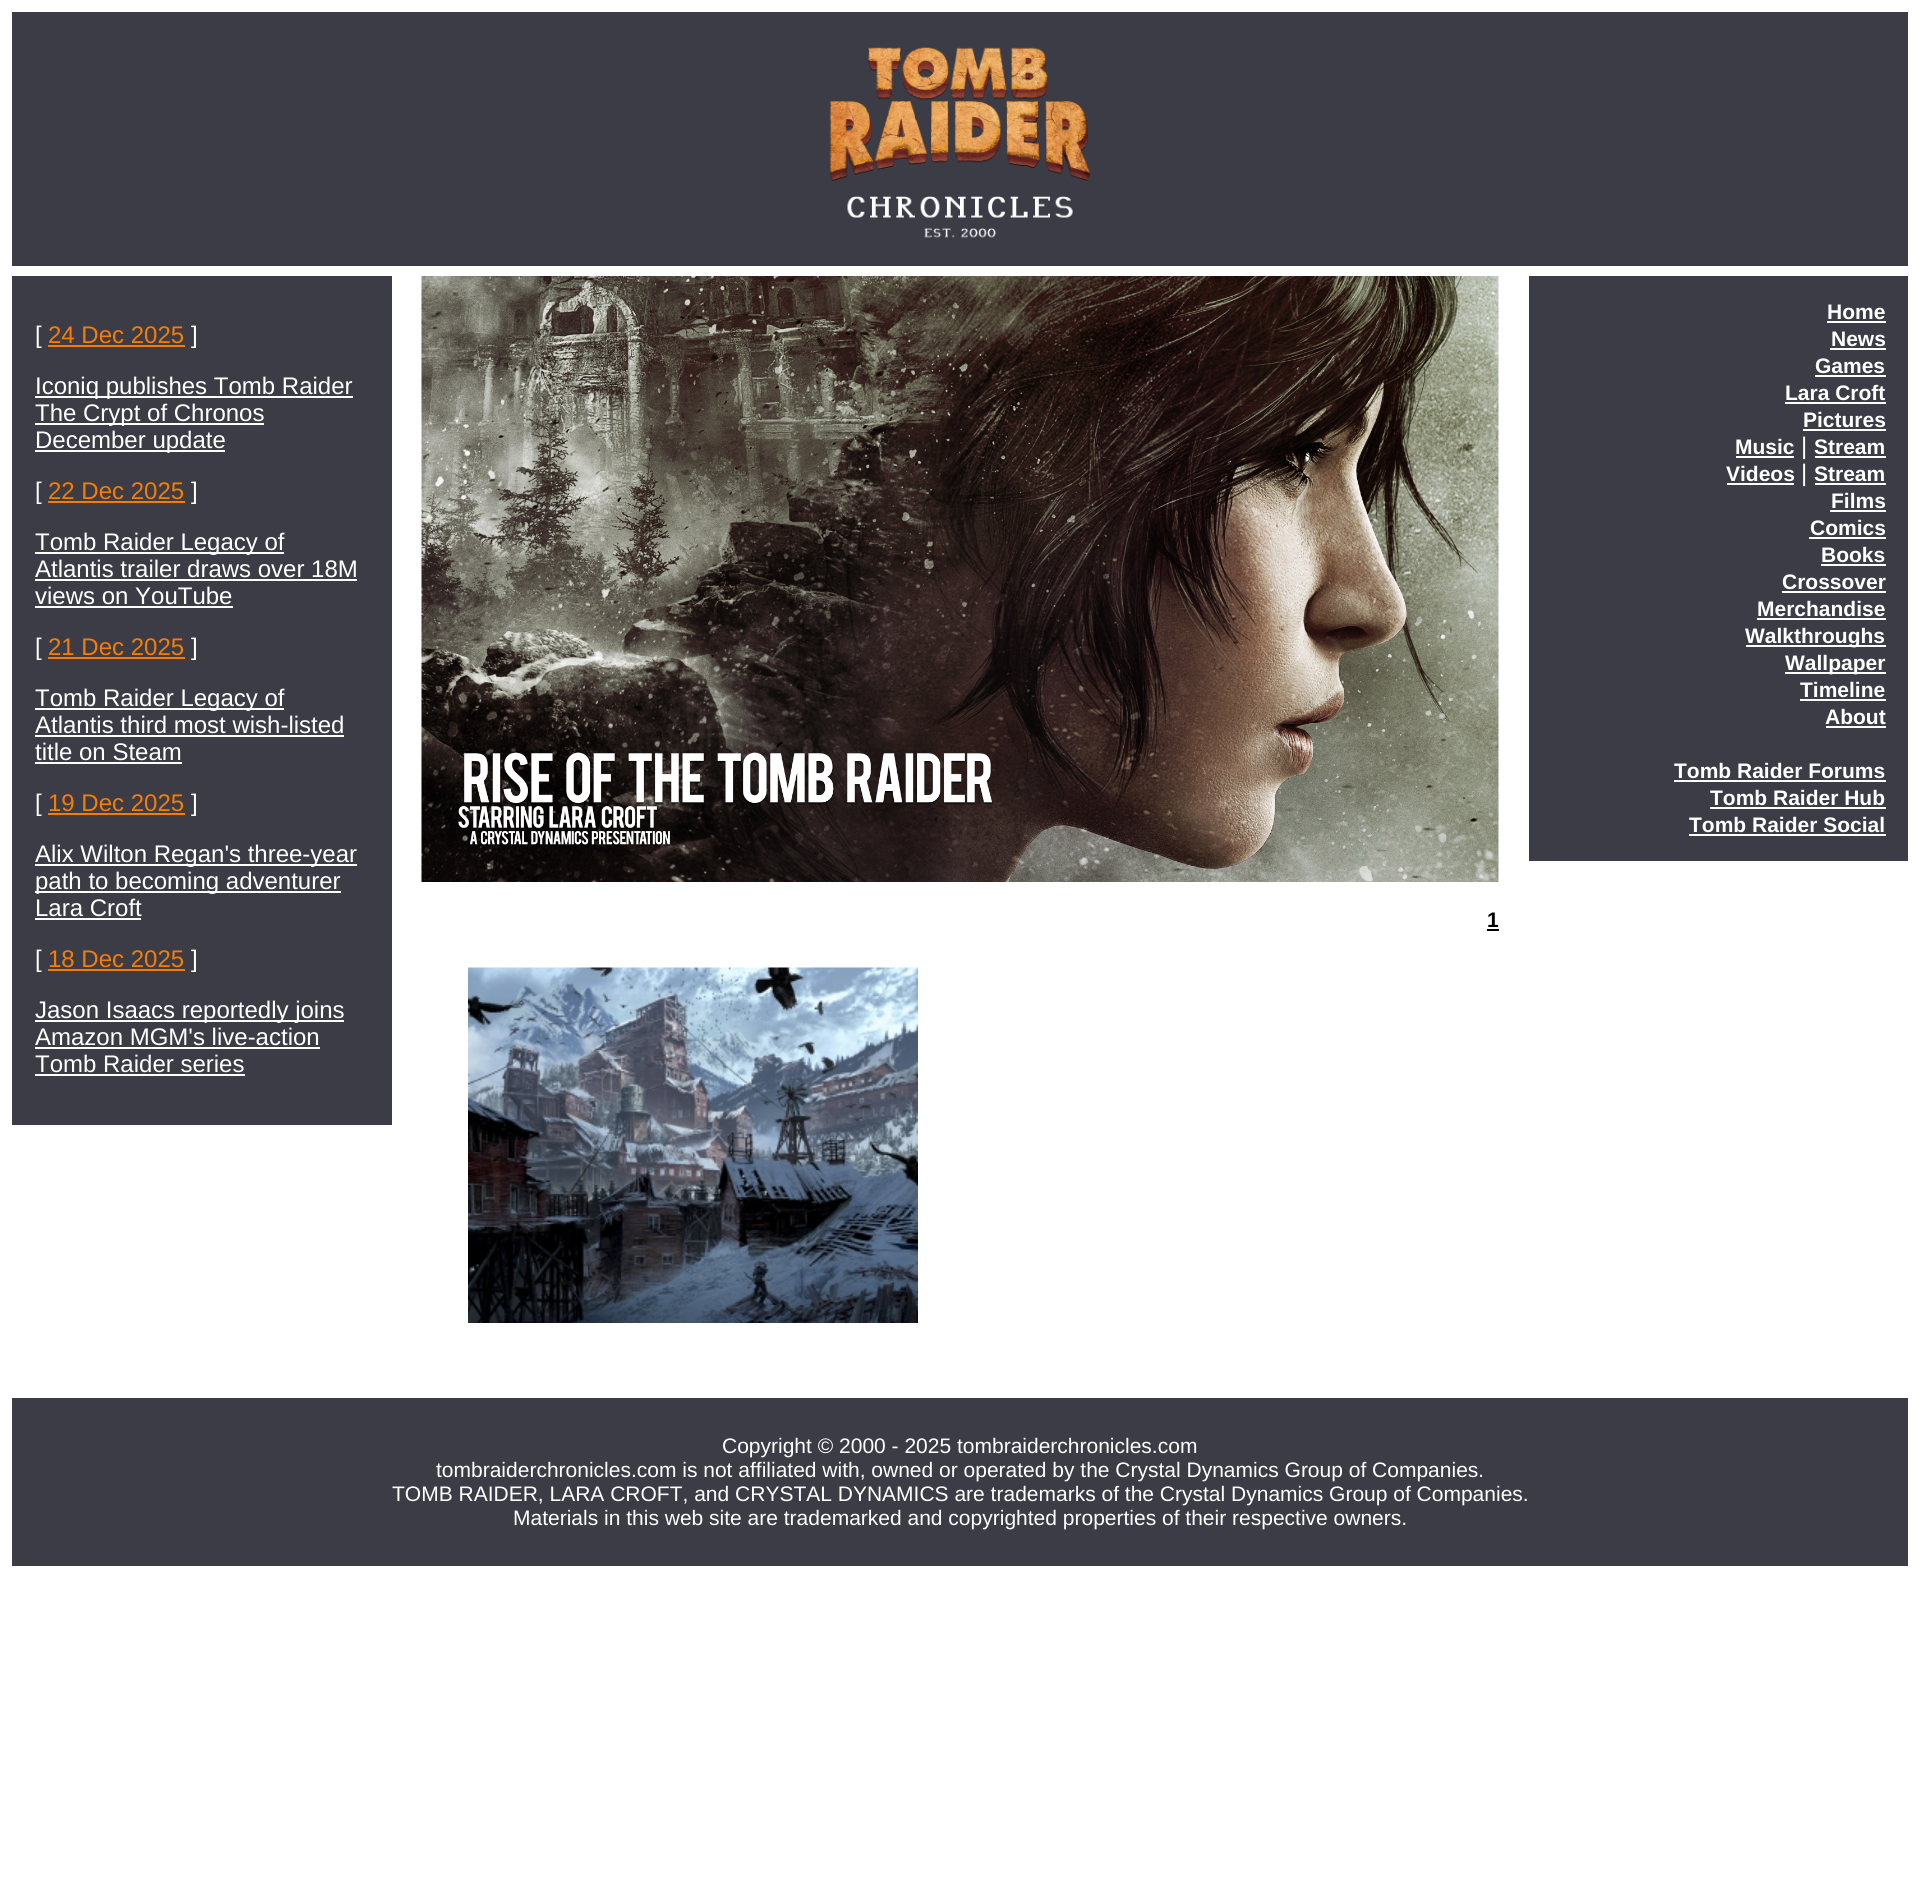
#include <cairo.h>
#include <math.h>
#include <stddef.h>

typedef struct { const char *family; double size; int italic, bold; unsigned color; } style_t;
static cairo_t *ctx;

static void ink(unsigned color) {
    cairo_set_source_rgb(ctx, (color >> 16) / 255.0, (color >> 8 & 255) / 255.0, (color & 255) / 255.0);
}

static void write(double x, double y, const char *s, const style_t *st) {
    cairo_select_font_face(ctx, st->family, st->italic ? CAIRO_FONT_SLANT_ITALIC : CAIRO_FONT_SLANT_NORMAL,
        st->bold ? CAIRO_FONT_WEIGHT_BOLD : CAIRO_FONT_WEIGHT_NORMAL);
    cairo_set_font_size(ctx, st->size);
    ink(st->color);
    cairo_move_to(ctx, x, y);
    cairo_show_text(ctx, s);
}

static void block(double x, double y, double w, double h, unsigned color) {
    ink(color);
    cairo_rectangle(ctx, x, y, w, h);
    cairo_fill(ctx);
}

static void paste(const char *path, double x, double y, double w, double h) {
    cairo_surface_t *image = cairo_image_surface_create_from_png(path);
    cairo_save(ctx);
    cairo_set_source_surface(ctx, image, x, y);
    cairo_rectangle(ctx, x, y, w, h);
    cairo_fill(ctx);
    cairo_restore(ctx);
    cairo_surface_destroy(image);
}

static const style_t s1 = {"Liberation Sans", 24, 0, 0, 0xffffff};
static const style_t s2 = {"Liberation Sans", 24, 0, 0, 0xf57d05};
static const style_t s3 = {"Liberation Sans", 21, 0, 1, 0x000000};
static const style_t s4 = {"Liberation Sans", 21, 0, 1, 0xffffff};
static const style_t s5 = {"Liberation Sans", 21, 0, 0, 0xffffff};

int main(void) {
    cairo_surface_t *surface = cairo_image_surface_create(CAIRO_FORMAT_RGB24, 1919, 1899);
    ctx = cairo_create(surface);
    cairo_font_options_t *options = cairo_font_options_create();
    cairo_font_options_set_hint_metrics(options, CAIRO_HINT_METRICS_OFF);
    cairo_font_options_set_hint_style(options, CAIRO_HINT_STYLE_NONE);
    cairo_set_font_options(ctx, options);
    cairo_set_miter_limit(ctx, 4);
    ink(0xffffff);
    cairo_paint(ctx);
    block(12, 12, 1896, 254, 0x3c3c46);
    paste("pic1.png", 829, 47, 262, 191);
    block(12, 276, 380, 849, 0x3c3c46);
    write(35, 343, "[", &s1);
    write(48, 343, "24 Dec 2025", &s2);
    block(48, 345, 137, 2, 0xf57d05);
    write(191, 343, "]", &s1);
    block(35, 396, 318, 2, 0xffffff);
    write(35, 394, "Iconiq publishes Tomb Raider", &s1);
    block(35, 423, 229, 2, 0xffffff);
    write(35, 421, "The Crypt of Chronos", &s1);
    block(35, 450, 190, 2, 0xffffff);
    write(35, 448, "December update", &s1);
    write(35, 499, "[", &s1);
    write(48, 499, "22 Dec 2025", &s2);
    block(48, 501, 137, 2, 0xf57d05);
    write(191, 499, "]", &s1);
    block(35, 552, 249, 2, 0xffffff);
    write(35, 550, "Tomb Raider Legacy of", &s1);
    write(35, 577, "Atlantis trailer draws over 18M", &s1);
    block(35, 579, 322, 2, 0xffffff);
    write(35, 604, "views on YouTube", &s1);
    block(35, 606, 198, 2, 0xffffff);
    write(35, 655, "[", &s1);
    write(48, 655, "21 Dec 2025", &s2);
    block(48, 657, 137, 2, 0xf57d05);
    write(191, 655, "]", &s1);
    block(35, 708, 249, 2, 0xffffff);
    write(35, 706, "Tomb Raider Legacy of", &s1);
    write(35, 733, "Atlantis third most wish-listed", &s1);
    block(35, 735, 309, 2, 0xffffff);
    write(35, 760, "title on Steam", &s1);
    block(35, 762, 147, 2, 0xffffff);
    write(35, 811, "[", &s1);
    write(48, 811, "19 Dec 2025", &s2);
    block(48, 813, 137, 2, 0xf57d05);
    write(191, 811, "]", &s1);
    block(35, 864, 322, 2, 0xffffff);
    write(35, 862, "Alix Wilton Regan's three-year", &s1);
    block(35, 891, 306, 2, 0xffffff);
    write(35, 889, "path to becoming adventurer", &s1);
    write(35, 916, "Lara Croft", &s1);
    block(35, 918, 106, 2, 0xffffff);
    write(35, 967, "[", &s1);
    write(48, 967, "18 Dec 2025", &s2);
    block(48, 969, 137, 2, 0xf57d05);
    write(191, 967, "]", &s1);
    block(35, 1020, 309, 2, 0xffffff);
    write(35, 1018, "Jason Isaacs reportedly joins", &s1);
    write(35, 1045, "Amazon MGM's live-action", &s1);
    block(35, 1047, 285, 2, 0xffffff);
    write(35, 1072, "Tomb Raider series", &s1);
    block(35, 1074, 210, 2, 0xffffff);
    paste("pic2.png", 421, 276, 1078, 606);
    write(1487, 927, "1", &s3);
    block(1487, 929, 12, 2, 0x000000);
    paste("pic3.png", 468, 967, 450, 356);
    block(1529, 276, 379, 585, 0x3c3c46);
    write(1827, 319, "Home", &s4);
    block(1827, 321, 59, 2, 0xffffff);
    write(1831, 346, "News", &s4);
    block(1830, 348, 56, 2, 0xffffff);
    write(1815, 373, "Games", &s4);
    block(1815, 375, 71, 2, 0xffffff);
    write(1785, 400, "Lara Croft", &s4);
    block(1785, 402, 101, 2, 0xffffff);
    write(1803, 427, "Pictures", &s4);
    block(1803, 429, 83, 2, 0xffffff);
    write(1735, 454, "Music", &s4);
    block(1736, 456, 58, 2, 0xffffff);
    write(1801, 454, "|", &s1);
    write(1814, 454, "Stream", &s4);
    block(1815, 456, 71, 2, 0xffffff);
    write(1726, 481, "Videos", &s4);
    block(1727, 483, 67, 2, 0xffffff);
    write(1801, 481, "|", &s1);
    write(1814, 481, "Stream", &s4);
    block(1815, 483, 71, 2, 0xffffff);
    write(1831, 508, "Films", &s4);
    block(1830, 510, 56, 2, 0xffffff);
    write(1810, 535, "Comics", &s4);
    block(1809, 537, 77, 2, 0xffffff);
    write(1821, 562, "Books", &s4);
    block(1821, 564, 65, 2, 0xffffff);
    write(1782, 589, "Crossover", &s4);
    block(1782, 591, 104, 2, 0xffffff);
    write(1757, 616, "Merchandise", &s4);
    block(1757, 618, 129, 2, 0xffffff);
    block(1746, 645, 140, 2, 0xffffff);
    write(1745, 643, "Walkthroughs", &s4);
    block(1785, 672, 101, 2, 0xffffff);
    write(1785, 670, "Wallpaper", &s4);
    write(1800, 697, "Timeline", &s4);
    block(1800, 699, 86, 2, 0xffffff);
    write(1825, 724, "About", &s4);
    block(1826, 726, 60, 2, 0xffffff);
    write(1674, 778, "Tomb Raider Forums", &s4);
    block(1674, 780, 212, 2, 0xffffff);
    write(1710, 805, "Tomb Raider Hub", &s4);
    block(1710, 807, 176, 2, 0xffffff);
    write(1689, 832, "Tomb Raider Social", &s4);
    block(1689, 834, 197, 2, 0xffffff);
    block(12, 1398, 1896, 168, 0x3c3c46);
    write(722, 1453, "Copyright © 2000 - 2025 tombraiderchronicles.com", &s5);
    write(436, 1477, "tombraiderchronicles.com is not affiliated with, owned or operated by the Crystal Dynamics Group of Companies.", &s5);
    write(392, 1501, "TOMB RAIDER, LARA CROFT, and CRYSTAL DYNAMICS are trademarks of the Crystal Dynamics Group of Companies.", &s5);
    write(513, 1525, "Materials in this web site are trademarked and copyrighted properties of their respective owners.", &s5);
    cairo_surface_write_to_png(surface, "screenshot.png");
    cairo_font_options_destroy(options);
    cairo_destroy(ctx);
    cairo_surface_destroy(surface);
    return 0;
}
